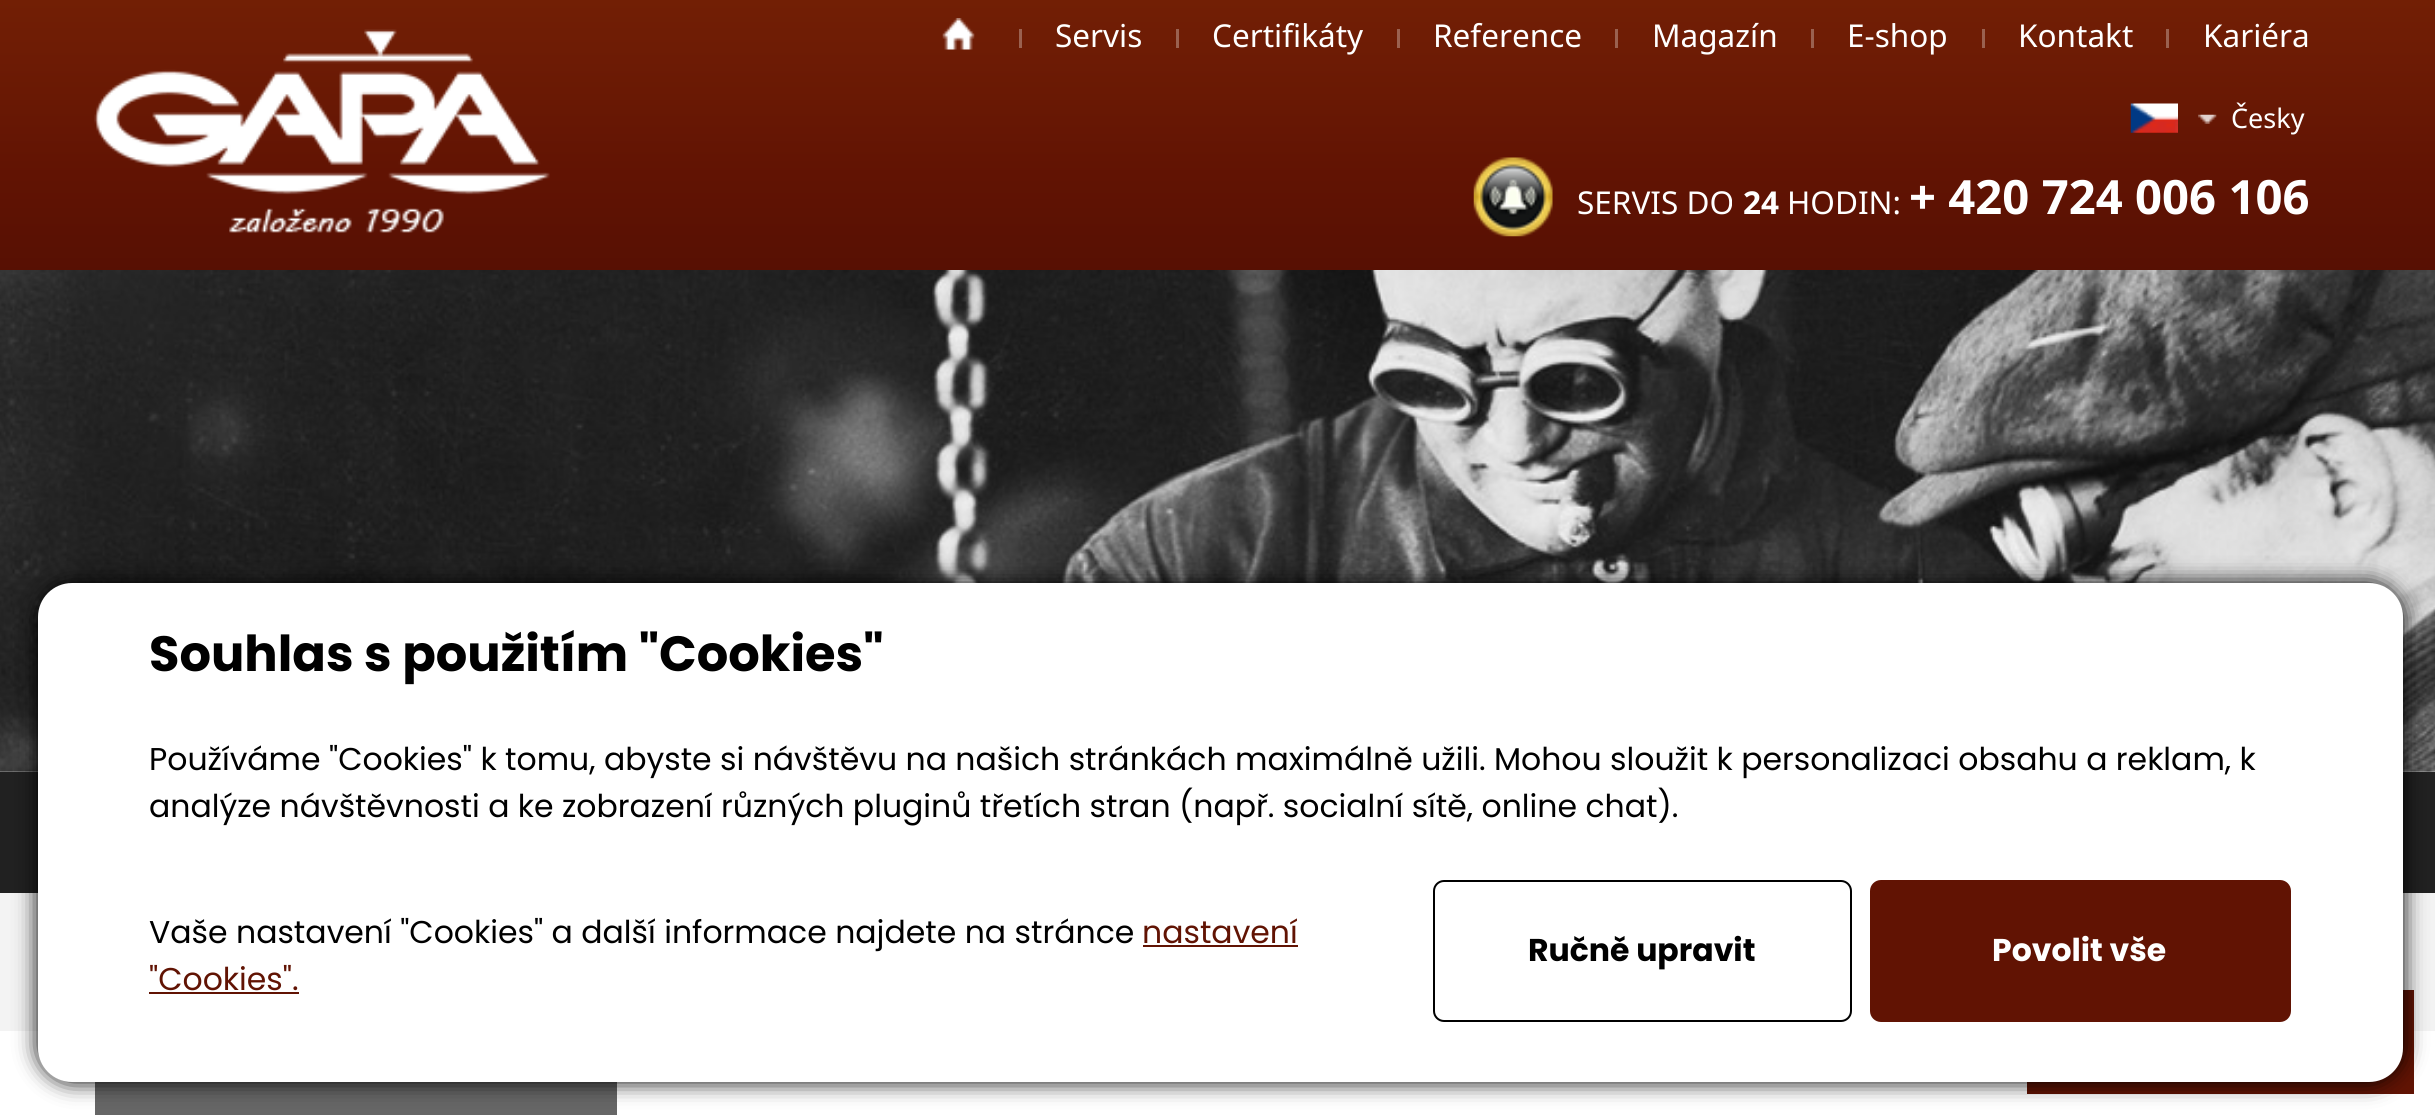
#include <cairo.h>
#include <math.h>
#include <stddef.h>

typedef struct { const char *family; double size; int italic, bold; unsigned color; } style_t;
static cairo_t *ctx;

static void ink(unsigned color) {
    cairo_set_source_rgb(ctx, (color >> 16) / 255.0, (color >> 8 & 255) / 255.0, (color & 255) / 255.0);
}

static void write(double x, double y, const char *s, const style_t *st) {
    cairo_select_font_face(ctx, st->family, st->italic ? CAIRO_FONT_SLANT_ITALIC : CAIRO_FONT_SLANT_NORMAL,
        st->bold ? CAIRO_FONT_WEIGHT_BOLD : CAIRO_FONT_WEIGHT_NORMAL);
    cairo_set_font_size(ctx, st->size);
    ink(st->color);
    cairo_move_to(ctx, x, y);
    cairo_show_text(ctx, s);
}

static void block(double x, double y, double w, double h, unsigned color) {
    ink(color);
    cairo_rectangle(ctx, x, y, w, h);
    cairo_fill(ctx);
}

static void round_path(double x, double y, double w, double h, double r) {
    cairo_new_sub_path(ctx);
    cairo_arc(ctx, x + w - r, y + h - r, r, 0, M_PI / 2);
    cairo_arc(ctx, x + r, y + h - r, r, M_PI / 2, M_PI);
    cairo_arc(ctx, x + r, y + r, r, M_PI, 1.5 * M_PI);
    cairo_arc(ctx, x + w - r, y + r, r, 1.5 * M_PI, 2 * M_PI);
    cairo_close_path(ctx);
}

static void blur_box(double x, double y, double w, double h, double r, double blur, double alpha) {
    cairo_push_group_with_content(ctx, CAIRO_CONTENT_ALPHA);
    cairo_set_operator(ctx, CAIRO_OPERATOR_SOURCE);
    for (int i = 15; i >= -15 && fmin(w, h) + blur * i / 3 > 0; i -= 2) {
        double e = blur * i / 6;
        cairo_set_source_rgba(ctx, 0, 0, 0, alpha * erfc((i - 1) / 8.5) / 2);
        round_path(x - e, y - e, w + 2 * e, h + 2 * e, fmax(0, fmin(r + e + blur * .6, fmin(w, h) / 2 + e)));
        cairo_fill(ctx);
    }
    cairo_pattern_t *soft = cairo_pop_group(ctx);
    cairo_mask(ctx, soft);
    cairo_pattern_destroy(soft);
}

static void paste(const char *path, double x, double y, double w, double h) {
    cairo_surface_t *image = cairo_image_surface_create_from_png(path);
    cairo_save(ctx);
    cairo_set_source_surface(ctx, image, x, y);
    cairo_rectangle(ctx, x, y, w, h);
    cairo_fill(ctx);
    cairo_restore(ctx);
    cairo_surface_destroy(image);
}

static const style_t s1 = {"Noto Sans", 31.5, 0, 0, 0xffffff};
static const style_t s2 = {"Noto Sans", 27, 0, 0, 0xffffff};
static const style_t s3 = {"Noto Sans", 31.5, 0, 1, 0xffffff};
static const style_t s4 = {"Noto Sans", 47.25, 0, 1, 0xffffff};
static const style_t s5 = {"Poppins", 49.5, 0, 1, 0x000000};
static const style_t s6 = {"Poppins", 31.5, 0, 0, 0x000000};
static const style_t s7 = {"Poppins", 31.5, 0, 0, 0x611303};
static const style_t s8 = {"Poppins", 31.5, 0, 1, 0x000000};
static const style_t s9 = {"Poppins", 31.5, 0, 1, 0xffffff};

int main(void) {
    cairo_surface_t *surface = cairo_image_surface_create(CAIRO_FORMAT_RGB24, 2435, 1115);
    ctx = cairo_create(surface);
    cairo_font_options_t *options = cairo_font_options_create();
    cairo_font_options_set_hint_metrics(options, CAIRO_HINT_METRICS_OFF);
    cairo_font_options_set_hint_style(options, CAIRO_HINT_STYLE_NONE);
    cairo_set_font_options(ctx, options);
    cairo_set_miter_limit(ctx, 4);
    ink(0xffffff);
    cairo_paint(ctx);
    paste("pic1.png", 0, 0, 2435, 270);
    paste("pic2.png", 94, 29, 456, 204);
    paste("pic3.png", 942, 18, 33, 32);
    block(1019, 29, 3, 19, 0x9a6150);
    write(1055, 47, "Servis", &s1);
    block(1176, 29, 3, 19, 0x9a6150);
    write(1212, 47, "Certifikáty", &s1);
    block(1397, 29, 3, 19, 0x9a6150);
    write(1433, 47, "Reference", &s1);
    block(1615, 29, 3, 19, 0x9a6150);
    write(1652, 47, "Magazín", &s1);
    block(1811, 29, 3, 19, 0x9a6150);
    write(1847, 47, "E-shop", &s1);
    block(1982, 29, 3, 19, 0x9a6150);
    write(2018, 47, "Kontakt", &s1);
    block(2166, 29, 3, 19, 0x9a6150);
    write(2203, 47, "Kariéra", &s1);
    paste("pic4.png", 2198, 114, 19, 10);
    paste("pic5.png", 2130, 103, 48, 30);
    write(2231, 128, "Česky", &s2);
    paste("pic6.png", 1473, 157, 80, 80);
    write(1577, 214, "SERVIS DO", &s1);
    write(1743, 214, "24", &s3);
    write(1787, 214, "HODIN:", &s1);
    write(1909, 214, "+ 420 724 006 106", &s4);
    paste("pic7.png", 0, 270, 2435, 502);
    block(0, 772, 2435, 121, 0x212121);
    block(0, 893, 2435, 138, 0xf3f3f3);
    block(95, 1082, 522, 33, 0x666666);
    block(2027, 990, 387, 104, 0x611303);
    ink(0x000000);
    blur_box(38, 583, 2365, 499, 34, 11, 1);
    ink(0xffffff);
    round_path(38, 583, 2365, 499, 34);
    cairo_fill(ctx);
    write(149, 671, "Souhlas s použitím \"Cookies\"", &s5);
    write(149, 770, "Používáme \"Cookies\" k tomu, abyste si návštěvu na našich stránkách maximálně užili. Mohou sloužit k personalizaci obsahu a reklam, k", &s6);
    write(149, 817, "analýze návštěvnosti a ke zobrazení různých pluginů třetích stran (např. socialní sítě, online chat).", &s6);
    write(149, 943, "Vaše nastavení \"Cookies\" a další informace najdete na stránce", &s6);
    write(1142, 943, "nastavení", &s7);
    block(1143, 945, 155, 2, 0x611303);
    write(149, 990, "\"Cookies\".", &s7);
    block(149, 992, 150, 2, 0x611303);
    round_path(1434, 881, 417, 140, 10);
    ink(0x000000);
    cairo_stroke(ctx);
    write(1528, 961, "Ručně upravit", &s8);
    ink(0x611303);
    round_path(1870, 880, 421, 142, 11);
    cairo_fill(ctx);
    write(1992, 961, "Povolit vše", &s9);
    cairo_surface_write_to_png(surface, "screenshot.png");
    cairo_font_options_destroy(options);
    cairo_destroy(ctx);
    cairo_surface_destroy(surface);
    return 0;
}
